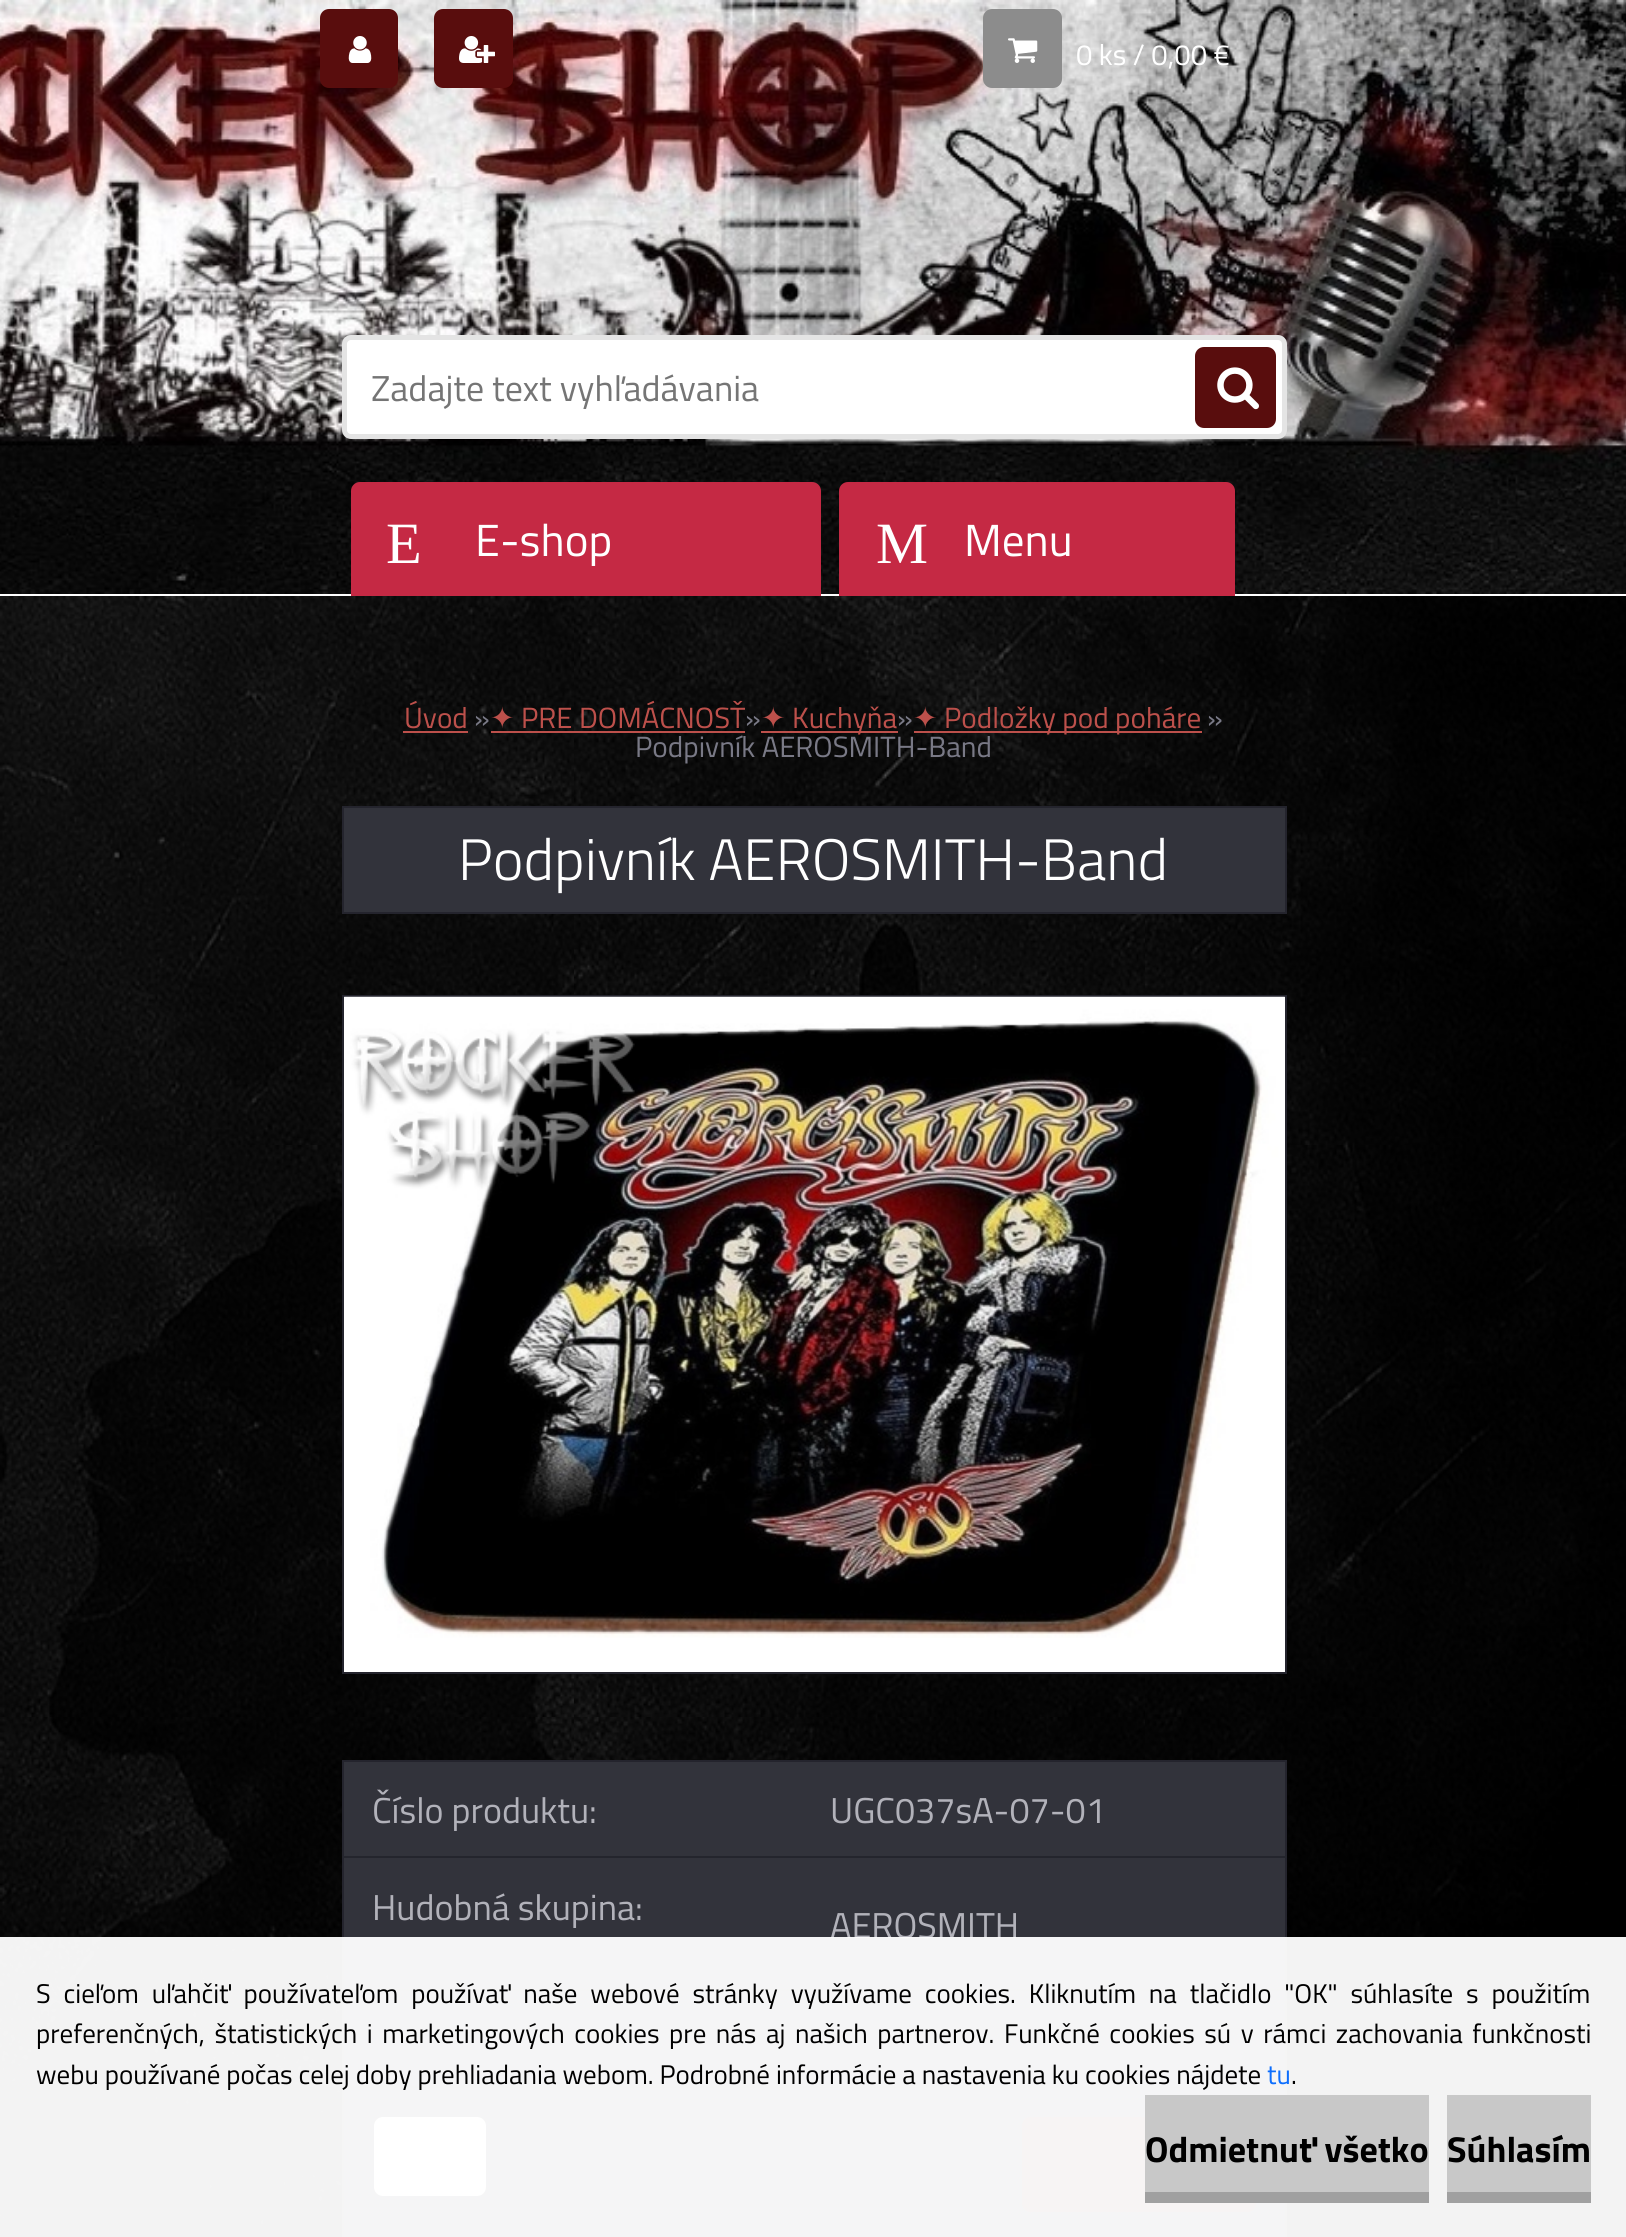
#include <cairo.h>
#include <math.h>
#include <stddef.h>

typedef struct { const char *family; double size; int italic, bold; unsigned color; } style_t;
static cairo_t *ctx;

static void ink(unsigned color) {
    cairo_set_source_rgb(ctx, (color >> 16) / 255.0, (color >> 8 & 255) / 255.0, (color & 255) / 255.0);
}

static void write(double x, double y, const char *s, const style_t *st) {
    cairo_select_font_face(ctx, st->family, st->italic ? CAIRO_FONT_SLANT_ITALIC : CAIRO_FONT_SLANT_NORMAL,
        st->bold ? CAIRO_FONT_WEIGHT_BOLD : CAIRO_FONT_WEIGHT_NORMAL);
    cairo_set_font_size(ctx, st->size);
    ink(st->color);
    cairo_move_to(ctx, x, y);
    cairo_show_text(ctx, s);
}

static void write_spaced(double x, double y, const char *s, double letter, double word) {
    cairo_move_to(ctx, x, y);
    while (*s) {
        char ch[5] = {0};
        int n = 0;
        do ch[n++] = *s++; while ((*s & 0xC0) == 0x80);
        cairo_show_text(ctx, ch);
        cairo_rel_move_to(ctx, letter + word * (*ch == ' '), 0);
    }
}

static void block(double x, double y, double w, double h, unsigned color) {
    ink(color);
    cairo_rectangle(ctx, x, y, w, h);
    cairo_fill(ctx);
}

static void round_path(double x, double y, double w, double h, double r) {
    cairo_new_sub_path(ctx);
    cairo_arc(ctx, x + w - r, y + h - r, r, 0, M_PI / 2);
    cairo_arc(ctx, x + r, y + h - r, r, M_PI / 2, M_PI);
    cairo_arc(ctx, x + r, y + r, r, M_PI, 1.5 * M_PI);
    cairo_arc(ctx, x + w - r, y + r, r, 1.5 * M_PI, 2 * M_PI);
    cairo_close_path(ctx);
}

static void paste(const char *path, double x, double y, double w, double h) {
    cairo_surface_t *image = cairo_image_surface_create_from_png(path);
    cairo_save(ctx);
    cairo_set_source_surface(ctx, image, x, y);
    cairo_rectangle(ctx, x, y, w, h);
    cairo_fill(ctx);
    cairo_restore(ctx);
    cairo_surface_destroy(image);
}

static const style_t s1 = {"Titillium Web", 29.25, 0, 0, 0xffffff};
static const style_t s2 = {"Liberation Serif", 58.5, 0, 0, 0xffffff};
static const style_t s3 = {"Titillium Web", 45, 0, 0, 0xffffff};
static const style_t s4 = {"Titillium Web", 29.25, 0, 0, 0xbd504b};
static const style_t s5 = {"Titillium Web", 29.25, 0, 0, 0x797986};
static const style_t s6 = {"DejaVu Sans", 29.25, 0, 0, 0xbd504b};
static const style_t s7 = {"Titillium Web Light", 58.5, 0, 0, 0xffffff};
static const style_t s8 = {"Titillium Web", 36, 0, 0, 0xb2b2ba};
static const style_t s9 = {"Titillium Web", 36, 0, 0, 0x757575};
static const style_t s10 = {"Titillium Web", 27, 0, 0, 0x000000};
static const style_t s11 = {"Titillium Web", 27, 0, 0, 0x0d6efd};
static const style_t s12 = {"Titillium Web", 36, 0, 1, 0x000000};

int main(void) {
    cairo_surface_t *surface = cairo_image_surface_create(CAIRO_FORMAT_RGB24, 1626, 2237);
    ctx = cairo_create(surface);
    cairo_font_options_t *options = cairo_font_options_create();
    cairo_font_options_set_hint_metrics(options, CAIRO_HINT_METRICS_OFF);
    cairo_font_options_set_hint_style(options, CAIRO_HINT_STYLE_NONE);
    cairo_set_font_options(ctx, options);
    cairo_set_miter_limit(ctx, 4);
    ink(0xffffff);
    cairo_paint(ctx);
    paste("pic1.png", 0, 596, 1626, 1641);
    paste("pic6.png", 0, 0, 1626, 594);
    ink(0x590d0d);
    round_path(320, 9, 78, 79, 9);
    cairo_fill(ctx);
    paste("pic2.png", 348, 36, 24, 27);
    round_path(434, 9, 79, 79, 9);
    cairo_fill(ctx);
    paste("pic3.png", 459, 36, 36, 27);
    ink(0x8c8c8c);
    round_path(983, 9, 79, 79, 9);
    cairo_fill(ctx);
    paste("pic4.png", 1008, 38, 30, 25);
    write(1076, 65, "0 ks / 0,00 €", &s1);
    ink(0xc52944);
    cairo_new_path(ctx);
    cairo_move_to(ctx, 360, 482);
    cairo_line_to(ctx, 812, 482);
    cairo_curve_to(ctx, 817, 482, 821, 486, 821, 491);
    cairo_line_to(ctx, 821, 596);
    cairo_line_to(ctx, 351, 596);
    cairo_line_to(ctx, 351, 491);
    cairo_curve_to(ctx, 351, 486, 355, 482, 360, 482);
    cairo_close_path(ctx);
    cairo_fill(ctx);
    write(386, 563, "E", &s2);
    write(475, 556, "E-shop", &s3);
    ink(0xc52944);
    cairo_new_path(ctx);
    cairo_move_to(ctx, 848, 482);
    cairo_line_to(ctx, 1226, 482);
    cairo_curve_to(ctx, 1231, 482, 1235, 486, 1235, 491);
    cairo_line_to(ctx, 1235, 596);
    cairo_line_to(ctx, 839, 596);
    cairo_line_to(ctx, 839, 491);
    cairo_curve_to(ctx, 839, 486, 843, 482, 848, 482);
    cairo_close_path(ctx);
    cairo_fill(ctx);
    write(876, 563, "M", &s2);
    write(964, 556, "Menu", &s3);
    write(404, 728, "Úvod", &s4);
    block(403, 731, 65, 2, 0xbd504b);
    write(474, 728, "»", &s5);
    write(490, 728, "✦", &s6);
    block(491, 731, 254, 2, 0xbd504b);
    write(521, 728, "PRE DOMÁCNOSŤ", &s4);
    write(745, 728, "»", &s5);
    write(761, 728, "✦", &s6);
    block(761, 731, 137, 2, 0xbd504b);
    write(792, 728, "Kuchyňa", &s4);
    write(897, 728, "»", &s5);
    write(913, 728, "✦", &s6);
    block(914, 731, 288, 2, 0xbd504b);
    write(944, 728, "Podložky pod poháre", &s4);
    write(1207, 728, "»", &s5);
    write(635, 757, "Podpivník AEROSMITH-Band", &s5);
    ink(0x32333b);
    cairo_rectangle(ctx, 343, 807, 943, 106);
    cairo_fill_preserve(ctx);
    ink(0x24242d);
    cairo_stroke(ctx);
    write(458, 880, "Podpivník AEROSMITH-Band", &s7);
    cairo_rectangle(ctx, 343, 996, 943, 677);
    ink(0x24242d);
    cairo_stroke(ctx);
    block(344, 997, 941, 675, 0xffffff);
    paste("pic5.png", 344, 996, 941, 642);
    block(342, 1760, 945, 2, 0x24242d);
    block(1285, 1760, 2, 477, 0x24242d);
    block(342, 1760, 2, 477, 0x24242d);
    block(344, 1762, 941, 227, 0x32333b);
    write(372, 1823, "Číslo produktu:", &s8);
    write(830, 1823, "UGC037sA-07-01", &s8);
    block(342, 1856, 945, 2, 0x24252d);
    write(372, 1920, "Hudobná skupina:", &s8);
    write(830, 1938, "AEROSMITH", &s8);
    block(344, 1991, 941, 95, 0x32333b);
    block(342, 1989, 945, 2, 0x24252d);
    block(344, 2088, 941, 149, 0x32333b);
    block(342, 2086, 945, 2, 0x24252d);
    ink(0xffffff);
    round_path(375, 2118, 110, 77, 8);
    cairo_fill_preserve(ctx);
    cairo_stroke(ctx);
    ink(0x590d0d);
    round_path(1022, 2117, 234, 95, 9);
    cairo_fill(ctx);
    ink(0xffffff);
    round_path(344.5, 337.5, 940, 99, 6.5);
    cairo_fill_preserve(ctx);
    ink(0xe4e4e4);
    cairo_set_line_width(ctx, 5);
    cairo_stroke(ctx);
    write(371, 401, "Zadajte text vyhľadávania", &s9);
    ink(0x590d0d);
    round_path(1195, 347, 81, 81, 9);
    cairo_fill(ctx);
    paste("pic7.png", 1217, 367, 42, 43);
    cairo_set_source_rgba(ctx, 1, 1, 1, 0.95);
    cairo_rectangle(ctx, 0, 1937, 1626, 300);
    cairo_fill(ctx);
    cairo_set_font_size(ctx, 27);
    ink(0x000000);
    write_spaced(36, 2003, "S cieľom uľahčiť používateľom používať naše webové stránky využívame cookies. Kliknutím na tlačidlo \"OK\" súhlasíte s použitím", 0, 6.9);
    write_spaced(36, 2043, "preferenčných, štatistických i marketingových cookies pre nás aj našich partnerov. Funkčné cookies sú v rámci zachovania funkčnosti", 0, 3.6);
    write(36, 2084, "webu používané počas celej doby prehliadania webom. Podrobné informácie a nastavenia ku cookies nájdete", &s10);
    write(1267, 2084, "tu", &s11);
    write(1291, 2084, ".", &s10);
    block(1145, 2095, 284, 97, 0xc8c8c8);
    block(1145, 2192, 284, 11, 0xa0a0a0);
    write(1145, 2162, "Odmietnuť všetko", &s12);
    block(1447, 2095, 144, 97, 0xc8c8c8);
    block(1447, 2192, 144, 11, 0xa0a0a0);
    write(1447, 2162, "Súhlasím", &s12);
    cairo_surface_write_to_png(surface, "screenshot.png");
    cairo_font_options_destroy(options);
    cairo_destroy(ctx);
    cairo_surface_destroy(surface);
    return 0;
}
